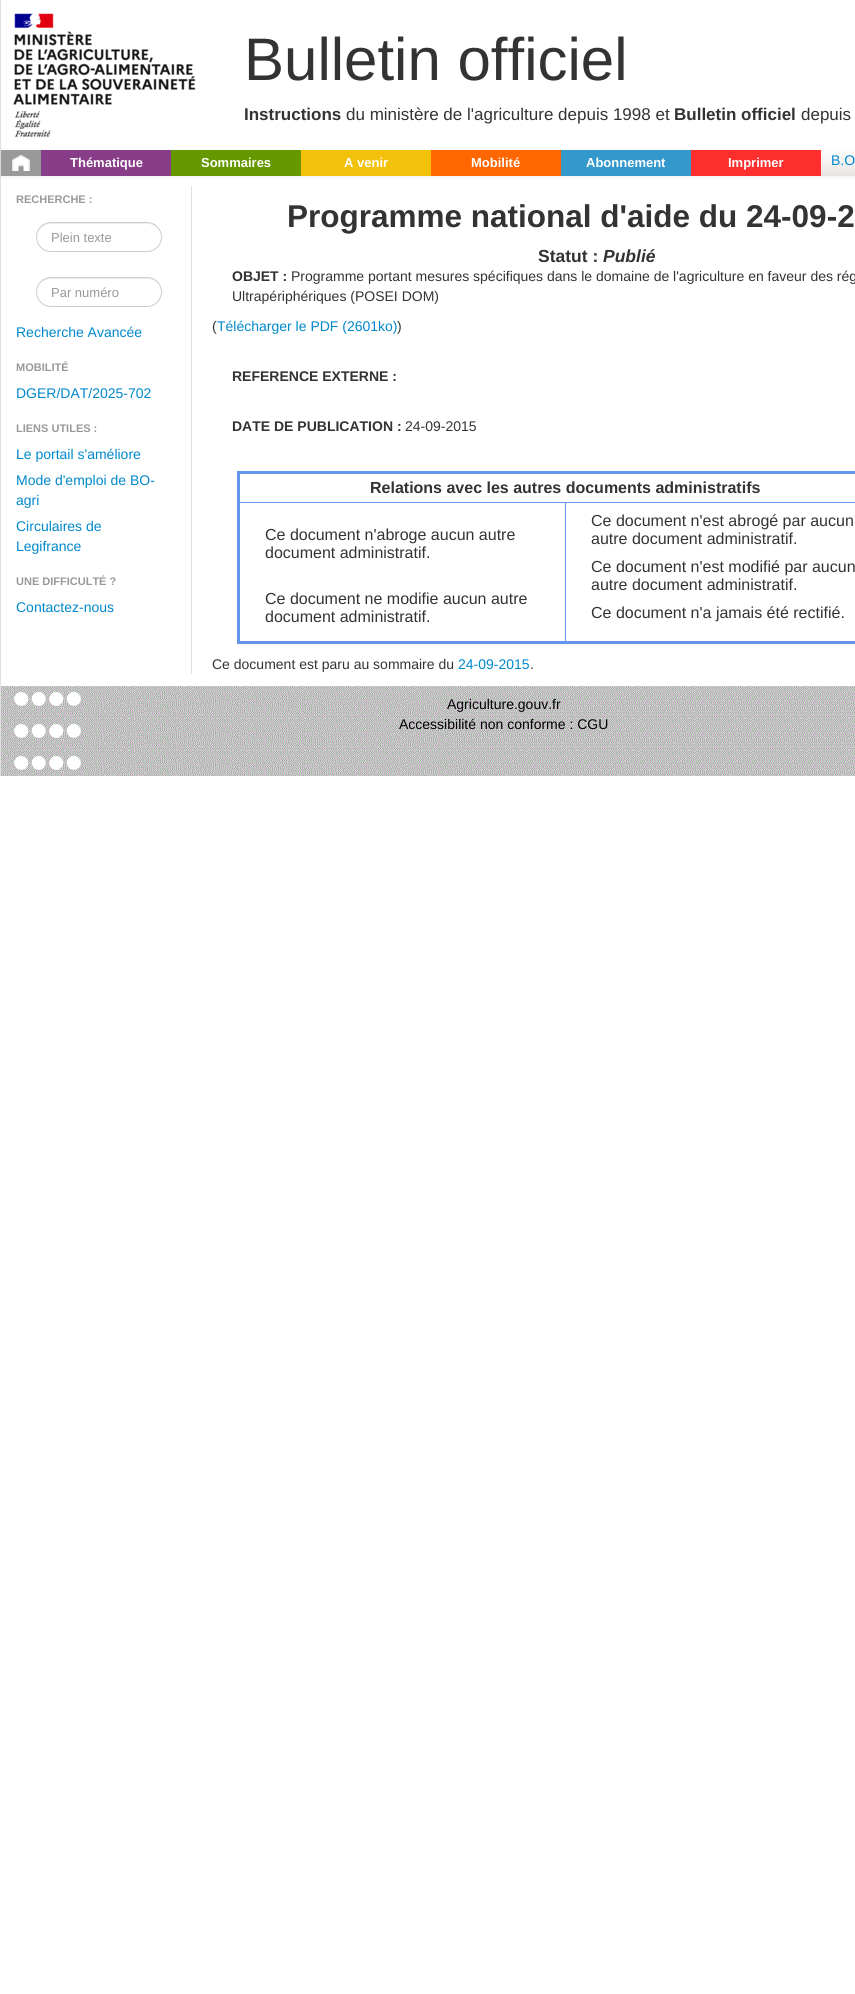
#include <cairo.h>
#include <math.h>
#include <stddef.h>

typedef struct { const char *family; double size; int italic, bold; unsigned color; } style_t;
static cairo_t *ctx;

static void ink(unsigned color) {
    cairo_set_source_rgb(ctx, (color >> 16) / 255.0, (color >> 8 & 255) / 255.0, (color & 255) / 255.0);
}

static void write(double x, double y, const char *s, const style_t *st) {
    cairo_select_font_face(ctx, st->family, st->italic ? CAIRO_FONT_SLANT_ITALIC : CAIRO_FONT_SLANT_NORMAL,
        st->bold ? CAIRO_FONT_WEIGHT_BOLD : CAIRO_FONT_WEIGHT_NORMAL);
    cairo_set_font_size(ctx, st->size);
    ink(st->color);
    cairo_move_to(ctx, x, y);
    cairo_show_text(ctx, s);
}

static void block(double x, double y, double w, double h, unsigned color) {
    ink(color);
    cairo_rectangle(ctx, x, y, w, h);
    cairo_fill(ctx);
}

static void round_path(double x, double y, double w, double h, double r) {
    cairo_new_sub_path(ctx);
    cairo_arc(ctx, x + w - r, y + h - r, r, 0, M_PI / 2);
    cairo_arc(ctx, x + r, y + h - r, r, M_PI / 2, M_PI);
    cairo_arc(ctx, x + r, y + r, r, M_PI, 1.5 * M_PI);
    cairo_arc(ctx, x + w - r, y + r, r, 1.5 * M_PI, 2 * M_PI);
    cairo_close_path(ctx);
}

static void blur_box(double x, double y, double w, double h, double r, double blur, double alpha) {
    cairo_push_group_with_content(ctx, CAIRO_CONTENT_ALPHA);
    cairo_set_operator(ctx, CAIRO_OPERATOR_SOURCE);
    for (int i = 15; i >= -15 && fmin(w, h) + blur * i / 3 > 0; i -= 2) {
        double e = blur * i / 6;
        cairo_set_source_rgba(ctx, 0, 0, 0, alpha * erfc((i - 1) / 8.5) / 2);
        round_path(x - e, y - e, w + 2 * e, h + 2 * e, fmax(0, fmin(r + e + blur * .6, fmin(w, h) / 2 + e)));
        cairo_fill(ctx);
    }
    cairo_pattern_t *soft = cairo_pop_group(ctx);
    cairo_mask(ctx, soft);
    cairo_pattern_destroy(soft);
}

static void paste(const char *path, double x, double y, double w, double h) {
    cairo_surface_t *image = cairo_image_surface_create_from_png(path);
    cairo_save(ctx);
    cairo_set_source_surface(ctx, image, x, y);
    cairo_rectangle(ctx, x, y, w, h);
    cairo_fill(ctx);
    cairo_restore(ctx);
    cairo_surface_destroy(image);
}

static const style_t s1 = {"Liberation Sans", 60, 0, 0, 0x333333};
static const style_t s2 = {"Liberation Sans", 17, 0, 1, 0x333333};
static const style_t s3 = {"Liberation Sans", 17, 0, 0, 0x333333};
static const style_t s4 = {"Liberation Sans", 13, 0, 1, 0xffffff};
static const style_t s5 = {"Liberation Sans", 14, 0, 0, 0x0088cc};
static const style_t s6 = {"Liberation Sans", 11, 0, 1, 0x999999};
static const style_t s7 = {"Liberation Sans", 13, 0, 0, 0x999999};
static const style_t s8 = {"Liberation Sans", 31.5, 0, 1, 0x333333};
static const style_t s9 = {"Liberation Sans", 17.5, 0, 1, 0x333333};
static const style_t s10 = {"Liberation Sans", 17.5, 1, 1, 0x333333};
static const style_t s11 = {"Liberation Sans", 14, 0, 1, 0x333333};
static const style_t s12 = {"Liberation Sans", 14, 0, 0, 0x333333};
static const style_t s13 = {"Liberation Sans", 16, 0, 1, 0x333333};
static const style_t s14 = {"Liberation Sans", 16, 0, 0, 0x333333};
static const style_t s15 = {"Liberation Sans", 14, 0, 0, 0x000000};

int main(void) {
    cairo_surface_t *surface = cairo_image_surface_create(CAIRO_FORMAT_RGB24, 855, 1994);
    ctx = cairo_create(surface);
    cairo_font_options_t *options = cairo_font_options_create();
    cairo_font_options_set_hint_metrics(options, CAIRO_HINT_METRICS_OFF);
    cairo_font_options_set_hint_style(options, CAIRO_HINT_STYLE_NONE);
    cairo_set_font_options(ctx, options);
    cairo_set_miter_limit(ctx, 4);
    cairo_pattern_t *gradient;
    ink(0xffffff);
    cairo_paint(ctx);
    block(0, 0, 1, 776, 0xe0e0e0);
    paste("pic1.png", 13, 13, 183, 124);
    write(244, 80, "Bulletin officiel", &s1);
    write(244, 120, "Instructions", &s2);
    write(346, 120, "du ministère de l'agriculture depuis 1998 et", &s3);
    write(674, 120, "Bulletin officiel", &s2);
    write(801, 120, "depuis", &s3);
    ink(0x000000);
    blur_box(1, 151, 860, 26, 0, 2, 0.07);
    gradient = cairo_pattern_create_linear(491, 150, 491, 176);
    cairo_pattern_add_color_stop_rgba(gradient, 0, 1, 1, 1, 1);
    cairo_pattern_add_color_stop_rgba(gradient, 1, 0.918, 0.898, 0.898, 1);
    cairo_set_source(ctx, gradient);
    cairo_pattern_destroy(gradient);
    cairo_rectangle(ctx, 821, 150, 34, 26);
    cairo_fill(ctx);
    block(1, 150, 40, 26, 0x999999);
    paste("pic2.png", 12, 155, 18, 16);
    block(41, 150, 130, 26, 0x873d87);
    write(70, 167, "Thématique", &s4);
    block(171, 150, 130, 26, 0x669900);
    write(201, 167, "Sommaires", &s4);
    block(301, 150, 130, 26, 0xf3c10a);
    write(344, 167, "A venir", &s4);
    block(431, 150, 130, 26, 0xff6600);
    write(471, 167, "Mobilité", &s4);
    block(561, 150, 130, 26, 0x3399cc);
    write(586, 167, "Abonnement", &s4);
    block(691, 150, 130, 26, 0xfe2e2e);
    write(728, 167, "Imprimer", &s4);
    write(831, 165, "B.O", &s5);
    write(16, 203, "RECHERCHE :", &s6);
    ink(0xececec);
    cairo_new_path(ctx);
    cairo_move_to(ctx, 51, 224);
    cairo_line_to(ctx, 147, 224);
    cairo_curve_to(ctx, 155, 224, 161, 230, 161, 237);
    cairo_curve_to(ctx, 161, 229, 155, 223, 147, 223);
    cairo_line_to(ctx, 51, 223);
    cairo_curve_to(ctx, 43, 223, 37, 229, 37, 237);
    cairo_curve_to(ctx, 37, 230, 43, 224, 51, 224);
    cairo_close_path(ctx);
    cairo_fill(ctx);
    round_path(36.5, 222.5, 125, 29, 14.5);
    ink(0xcccccc);
    cairo_set_line_width(ctx, 1);
    cairo_stroke(ctx);
    write(51, 242, "Plein texte", &s7);
    ink(0xececec);
    cairo_new_path(ctx);
    cairo_move_to(ctx, 51, 279);
    cairo_line_to(ctx, 147, 279);
    cairo_curve_to(ctx, 155, 279, 161, 285, 161, 292);
    cairo_curve_to(ctx, 161, 284, 155, 278, 147, 278);
    cairo_line_to(ctx, 51, 278);
    cairo_curve_to(ctx, 43, 278, 37, 284, 37, 292);
    cairo_curve_to(ctx, 37, 285, 43, 279, 51, 279);
    cairo_close_path(ctx);
    cairo_fill(ctx);
    round_path(36.5, 277.5, 125, 29, 14.5);
    ink(0xcccccc);
    cairo_stroke(ctx);
    write(51, 297, "Par numéro", &s7);
    write(16, 337, "Recherche Avancée", &s5);
    write(16, 371, "MOBILITÉ", &s6);
    write(16, 398, "DGER/DAT/2025-702", &s5);
    write(16, 432, "LIENS UTILES :", &s6);
    write(16, 459, "Le portail s'améliore", &s5);
    write(16, 485, "Mode d'emploi de BO-", &s5);
    write(16, 505, "agri", &s5);
    write(16, 531, "Circulaires de", &s5);
    write(16, 551, "Legifrance", &s5);
    write(16, 585, "UNE DIFFICULTÉ ?", &s6);
    write(16, 612, "Contactez-nous", &s5);
    block(191, 186, 1, 488, 0xe0e0e0);
    write(287, 227, "Programme national d'aide du 24-09-2", &s8);
    write(538, 262, "Statut :", &s9);
    write(603, 262, "Publié", &s10);
    write(232, 281, "OBJET :", &s11);
    write(291, 281, "Programme portant mesures spécifiques dans le domaine de l'agriculture en faveur des rég", &s12);
    write(232, 301, "Ultrapériphériques (POSEI DOM)", &s12);
    write(212, 331, "(", &s12);
    write(217, 331, "Télécharger le PDF (2601ko)", &s5);
    write(397, 331, ")", &s12);
    write(232, 381, "REFERENCE EXTERNE :", &s11);
    write(232, 431, "DATE DE PUBLICATION :", &s11);
    write(405, 431, "24-09-2015", &s12);
    block(237, 471, 618, 3, 0x6495ed);
    block(565, 502, 290, 1, 0x6495ed);
    block(565, 502, 1, 141, 0x6495ed);
    block(237, 641, 618, 3, 0x6495ed);
    block(238, 502, 328, 1, 0x6495ed);
    block(237, 471, 3, 173, 0x6495ed);
    write(370, 493, "Relations avec les autres documents administratifs", &s13);
    write(265, 540, "Ce document n'abroge aucun autre", &s14);
    write(265, 558, "document administratif.", &s14);
    write(265, 604, "Ce document ne modifie aucun autre", &s14);
    write(265, 622, "document administratif.", &s14);
    write(591, 526, "Ce document n'est abrogé par aucun", &s14);
    write(591, 544, "autre document administratif.", &s14);
    write(591, 572, "Ce document n'est modifié par aucun", &s14);
    write(591, 590, "autre document administratif.", &s14);
    write(591, 618, "Ce document n'a jamais été rectifié.", &s14);
    write(212, 669, "Ce document est paru au sommaire du", &s12);
    write(458, 669, "24-09-2015", &s5);
    write(530, 669, ".", &s12);
    paste("pic3.png", 1, 686, 854, 90);
    write(447, 709, "Agriculture.gouv.fr", &s15);
    write(399, 729, "Accessibilité non conforme : CGU", &s15);
    cairo_surface_write_to_png(surface, "screenshot.png");
    cairo_font_options_destroy(options);
    cairo_destroy(ctx);
    cairo_surface_destroy(surface);
    return 0;
}
